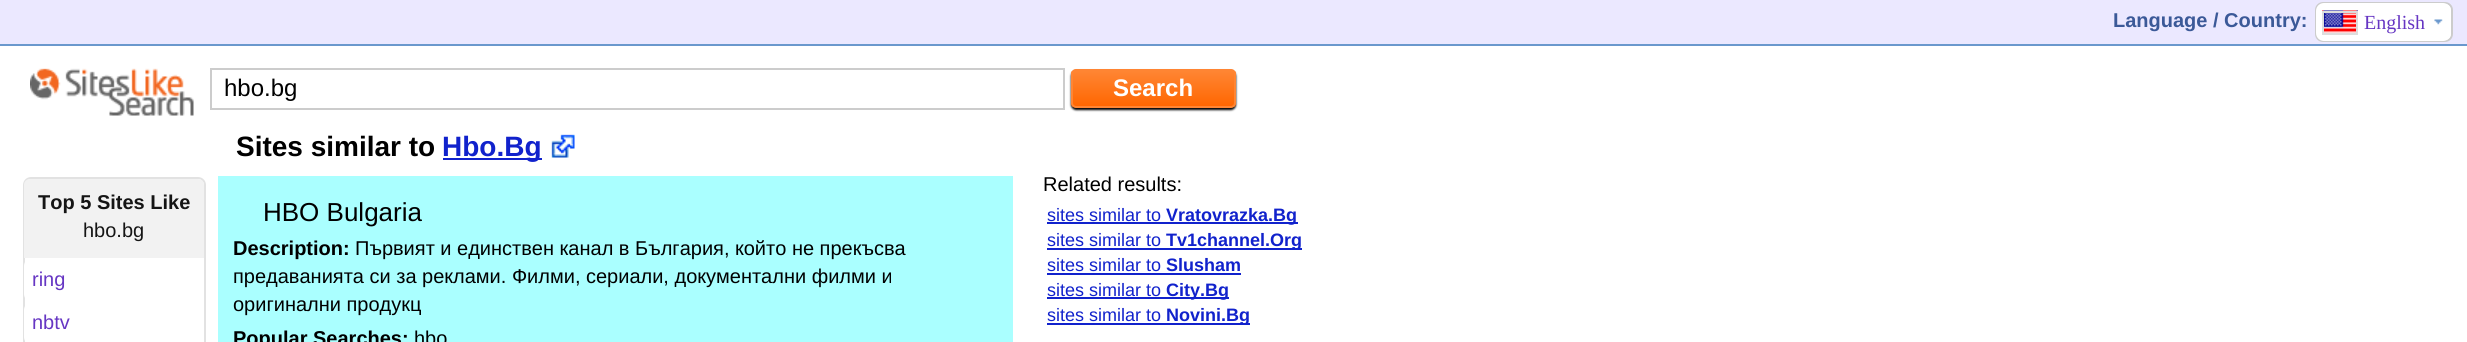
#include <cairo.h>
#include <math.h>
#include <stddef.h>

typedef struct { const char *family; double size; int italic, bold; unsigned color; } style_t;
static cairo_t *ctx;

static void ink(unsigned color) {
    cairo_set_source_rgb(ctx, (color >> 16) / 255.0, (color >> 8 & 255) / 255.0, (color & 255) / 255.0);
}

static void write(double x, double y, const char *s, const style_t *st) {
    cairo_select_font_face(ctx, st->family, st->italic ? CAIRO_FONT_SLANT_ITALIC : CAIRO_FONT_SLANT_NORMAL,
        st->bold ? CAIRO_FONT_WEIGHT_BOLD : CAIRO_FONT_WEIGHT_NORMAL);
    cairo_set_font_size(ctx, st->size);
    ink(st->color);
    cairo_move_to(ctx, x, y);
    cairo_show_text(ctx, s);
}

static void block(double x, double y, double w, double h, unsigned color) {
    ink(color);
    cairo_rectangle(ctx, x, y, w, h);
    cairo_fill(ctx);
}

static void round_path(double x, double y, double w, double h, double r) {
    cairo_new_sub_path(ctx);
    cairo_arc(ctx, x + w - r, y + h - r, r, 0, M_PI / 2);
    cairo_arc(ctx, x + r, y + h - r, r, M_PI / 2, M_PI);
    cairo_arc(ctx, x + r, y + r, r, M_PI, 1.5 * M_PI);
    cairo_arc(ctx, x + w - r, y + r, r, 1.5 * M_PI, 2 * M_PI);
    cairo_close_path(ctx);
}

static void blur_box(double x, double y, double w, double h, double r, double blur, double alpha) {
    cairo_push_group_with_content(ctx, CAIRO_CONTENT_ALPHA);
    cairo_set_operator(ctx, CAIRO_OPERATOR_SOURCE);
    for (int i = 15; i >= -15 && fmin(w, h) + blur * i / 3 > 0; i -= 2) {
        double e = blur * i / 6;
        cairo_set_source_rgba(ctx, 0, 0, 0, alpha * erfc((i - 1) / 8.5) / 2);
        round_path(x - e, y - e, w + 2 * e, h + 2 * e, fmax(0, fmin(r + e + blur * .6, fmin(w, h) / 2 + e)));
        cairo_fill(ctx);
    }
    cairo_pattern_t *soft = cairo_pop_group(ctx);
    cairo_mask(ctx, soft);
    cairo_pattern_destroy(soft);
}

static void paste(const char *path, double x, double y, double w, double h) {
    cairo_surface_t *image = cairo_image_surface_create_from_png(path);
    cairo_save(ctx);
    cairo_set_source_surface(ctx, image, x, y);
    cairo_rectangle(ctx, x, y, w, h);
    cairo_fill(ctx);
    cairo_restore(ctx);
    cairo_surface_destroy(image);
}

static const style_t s1 = {"Liberation Sans", 20, 0, 1, 0x3b5998};
static const style_t s2 = {"Liberation Serif", 20, 0, 0, 0x6636c3};
static const style_t s3 = {"Liberation Sans", 24, 0, 0, 0x000000};
static const style_t s4 = {"Liberation Sans", 24, 0, 1, 0xffffff};
static const style_t s5 = {"Liberation Sans", 28, 0, 1, 0x000000};
static const style_t s6 = {"Liberation Sans", 28, 0, 1, 0x1122cc};
static const style_t s7 = {"Liberation Sans", 20, 0, 1, 0x151515};
static const style_t s8 = {"Liberation Sans", 20, 0, 0, 0x151515};
static const style_t s9 = {"Liberation Sans", 20, 0, 0, 0x6636c3};
static const style_t s10 = {"Liberation Sans", 26, 0, 0, 0x000000};
static const style_t s11 = {"Liberation Sans", 20, 0, 1, 0x000000};
static const style_t s12 = {"Liberation Sans", 20, 0, 0, 0x000000};
static const style_t s13 = {"Liberation Sans", 18, 0, 0, 0x1122cc};
static const style_t s14 = {"Liberation Sans", 18, 0, 1, 0x1122cc};

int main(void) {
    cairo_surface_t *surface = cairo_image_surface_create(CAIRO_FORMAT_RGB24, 2467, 342);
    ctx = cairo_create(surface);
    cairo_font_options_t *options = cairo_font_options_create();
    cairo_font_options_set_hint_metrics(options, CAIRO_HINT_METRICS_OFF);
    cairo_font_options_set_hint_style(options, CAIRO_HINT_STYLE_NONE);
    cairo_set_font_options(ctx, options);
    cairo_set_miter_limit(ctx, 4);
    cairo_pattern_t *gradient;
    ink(0xffffff);
    cairo_paint(ctx);
    block(0, 0, 2467, 44, 0xebe8ff);
    block(0, 44, 2467, 2, 0x6a98cd);
    write(2113, 27, "Language / Country:", &s1);
    ink(0xffffff);
    round_path(2316, 3, 136, 38, 7);
    cairo_fill_preserve(ctx);
    ink(0xcccccc);
    cairo_stroke(ctx);
    ink(0xffffff);
    round_path(2316, 3, 135, 38, 8);
    cairo_fill(ctx);
    paste("pic1.png", 2322, 10, 36, 23);
    cairo_rectangle(ctx, 2323, 12, 34, 22);
    ink(0xdddddd);
    cairo_stroke(ctx);
    write(2364, 29, "English", &s2);
    paste("pic2.png", 2434, 19, 9, 6);
    paste("pic3.png", 30, 68, 164, 48);
    cairo_rectangle(ctx, 211, 69, 853, 40);
    ink(0xcccccc);
    cairo_stroke(ctx);
    write(224, 96, "hbo.bg", &s3);
    ink(0x000000);
    blur_box(1071, 71, 165, 39, 5, 1, 1);
    cairo_save(ctx);
    round_path(1071, 69, 165, 39, 5);
    cairo_clip(ctx);
    gradient = cairo_pattern_create_linear(1073, 71, 1073, 107);
    cairo_pattern_add_color_stop_rgba(gradient, 0, 1, 0.522, 0.2, 1);
    cairo_pattern_add_color_stop_rgba(gradient, 1, 1, 0.4, 0, 1);
    cairo_set_source(ctx, gradient);
    cairo_pattern_destroy(gradient);
    cairo_rectangle(ctx, 1071, 71, 165, 36);
    cairo_fill(ctx);
    cairo_restore(ctx);
    round_path(1072, 70, 163, 37, 4);
    ink(0xff8533);
    cairo_stroke(ctx);
    write(1113, 96, "Search", &s4);
    write(236, 156, "Sites similar to", &s5);
    block(443, 158, 99, 2, 0x1122cc);
    write(442, 156, "Hbo.Bg", &s6);
    paste("pic4.png", 551, 134, 24, 24);
    round_path(24, 178, 181, 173, 7);
    ink(0xe2e2e2);
    cairo_stroke(ctx);
    ink(0xf2f2f2);
    cairo_new_path(ctx);
    cairo_move_to(ctx, 30, 179);
    cairo_line_to(ctx, 198, 179);
    cairo_curve_to(ctx, 201.5, 179, 204, 181.5, 204, 185);
    cairo_line_to(ctx, 204, 258);
    cairo_line_to(ctx, 24, 258);
    cairo_line_to(ctx, 24, 185);
    cairo_curve_to(ctx, 24, 181.5, 26.5, 179, 30, 179);
    cairo_close_path(ctx);
    cairo_fill(ctx);
    write(38, 209, "Top 5 Sites Like", &s7);
    write(83, 237, "hbo.bg", &s8);
    ink(0xffffff);
    round_path(24, 258, 180, 44, 8);
    cairo_fill(ctx);
    write(32, 286, "ring", &s9);
    ink(0xffffff);
    round_path(24, 302, 180, 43, 8);
    cairo_fill(ctx);
    write(32, 329, "nbtv", &s9);
    block(218, 176, 795, 166, 0xaaffff);
    write(263, 221, "HBO Bulgaria", &s10);
    write(233, 255, "Description:", &s11);
    write(355, 255, "Първият и единствен канал в България, който не прекъсва", &s12);
    write(233, 283, "предаванията си за реклами. Филми, сериали, документални филми и", &s12);
    write(233, 311, "оригинални продукц", &s12);
    write(233, 345, "Popular Searches:", &s11);
    write(414, 345, "hbo", &s12);
    write(1043, 191, "Related results:", &s12);
    write(1047, 221, "sites similar to", &s13);
    block(1047, 222, 251, 2, 0x1122cc);
    write(1166, 221, "Vratovrazka.Bg", &s14);
    write(1047, 246, "sites similar to", &s13);
    block(1047, 248, 255, 2, 0x1122cc);
    write(1166, 246, "Tv1channel.Org", &s14);
    write(1047, 271, "sites similar to", &s13);
    block(1047, 273, 194, 2, 0x1122cc);
    write(1166, 271, "Slusham", &s14);
    write(1047, 296, "sites similar to", &s13);
    block(1047, 297, 182, 2, 0x1122cc);
    write(1166, 296, "City.Bg", &s14);
    write(1047, 321, "sites similar to", &s13);
    block(1047, 323, 203, 2, 0x1122cc);
    write(1166, 321, "Novini.Bg", &s14);
    cairo_surface_write_to_png(surface, "screenshot.png");
    cairo_font_options_destroy(options);
    cairo_destroy(ctx);
    cairo_surface_destroy(surface);
    return 0;
}
